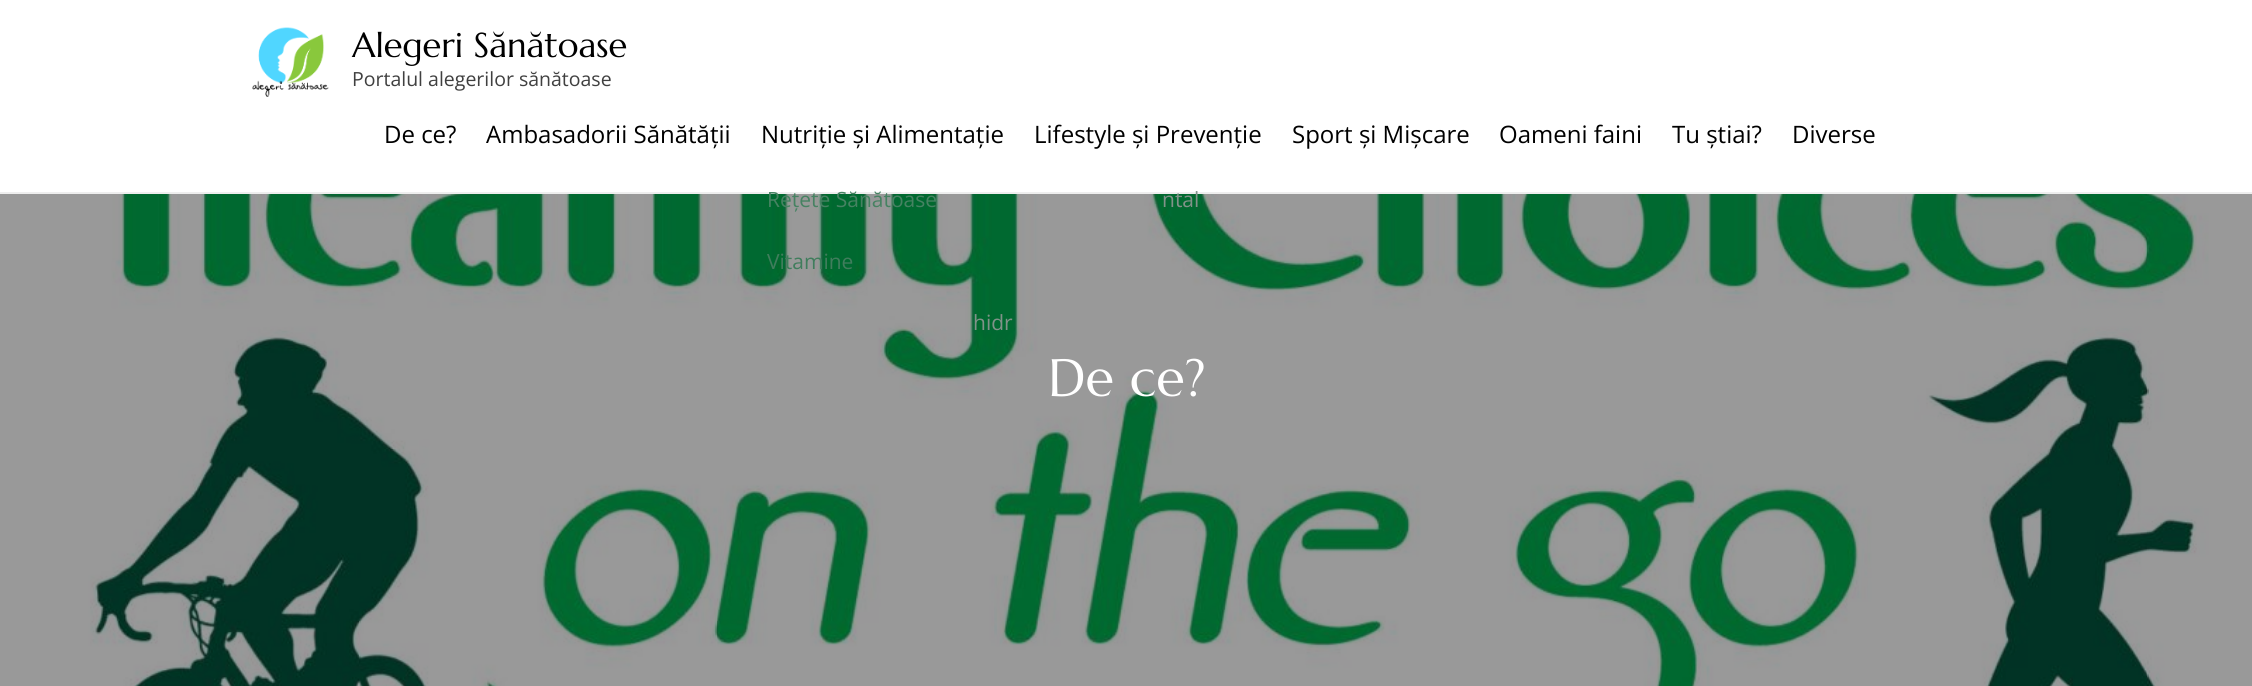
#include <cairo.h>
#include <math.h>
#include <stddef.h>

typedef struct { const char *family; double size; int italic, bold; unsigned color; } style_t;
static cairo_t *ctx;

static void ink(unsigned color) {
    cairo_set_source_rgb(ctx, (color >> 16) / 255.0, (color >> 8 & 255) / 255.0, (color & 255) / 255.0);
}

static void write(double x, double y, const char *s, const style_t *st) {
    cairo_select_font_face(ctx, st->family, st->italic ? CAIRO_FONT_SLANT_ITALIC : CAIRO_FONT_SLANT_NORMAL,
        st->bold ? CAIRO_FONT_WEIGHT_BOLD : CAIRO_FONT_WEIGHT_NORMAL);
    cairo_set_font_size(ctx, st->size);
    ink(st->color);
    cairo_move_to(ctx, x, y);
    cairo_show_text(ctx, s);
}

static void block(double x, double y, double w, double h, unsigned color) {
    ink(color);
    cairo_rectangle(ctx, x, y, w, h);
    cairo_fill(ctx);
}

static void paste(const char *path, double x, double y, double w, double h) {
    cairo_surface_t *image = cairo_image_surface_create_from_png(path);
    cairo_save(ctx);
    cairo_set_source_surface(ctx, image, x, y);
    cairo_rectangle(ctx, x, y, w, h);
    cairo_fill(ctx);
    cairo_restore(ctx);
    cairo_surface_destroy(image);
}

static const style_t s1 = {"Marcellus", 34.5, 0, 0, 0x000000};
static const style_t s2 = {"Open Sans", 19.5, 0, 0, 0x404040};
static const style_t s3 = {"Open Sans", 24, 0, 0, 0x000000};
static const style_t s4 = {"Open Sans", 21, 0, 0, 0x468262};
static const style_t s5 = {"Open Sans", 21, 0, 0, 0x407d5c};
static const style_t s6 = {"Open Sans", 21, 0, 0, 0x819289};
static const style_t s7 = {"Marcellus", 52.5, 0, 0, 0xffffff};

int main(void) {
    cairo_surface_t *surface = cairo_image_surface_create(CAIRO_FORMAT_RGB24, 2252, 686);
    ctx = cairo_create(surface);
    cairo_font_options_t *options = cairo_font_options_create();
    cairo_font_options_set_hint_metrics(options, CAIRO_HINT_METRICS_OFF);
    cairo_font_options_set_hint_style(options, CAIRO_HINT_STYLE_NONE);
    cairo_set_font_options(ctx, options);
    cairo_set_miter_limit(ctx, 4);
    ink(0x999999);
    cairo_paint(ctx);
    block(0, 0, 2252, 192, 0xffffff);
    block(0, 192, 2252, 2, 0xeeeeee);
    paste("pic1.png", 252, 27, 77, 70);
    write(352, 57, "Alegeri Sănătoase", &s1);
    write(352, 86, "Portalul alegerilor sănătoase", &s2);
    write(384, 143, "De ce?", &s3);
    write(486, 143, "Ambasadorii Sănătății", &s3);
    write(761, 143, "Nutriție și Alimentație", &s3);
    paste("pic2.png", 72, 194, 2137, 492);
    write(767, 207, "Rețete Sănătoase", &s4);
    write(767, 269, "Vitamine", &s5);
    write(973, 330, "hidr", &s6);
    write(1034, 143, "Lifestyle și Prevenție", &s3);
    write(1162, 207, "ntal", &s6);
    write(1292, 143, "Sport și Mișcare", &s3);
    write(1499, 143, "Oameni faini", &s3);
    write(1672, 143, "Tu știai?", &s3);
    write(1792, 143, "Diverse", &s3);
    write(1048, 396, "De ce?", &s7);
    cairo_surface_write_to_png(surface, "screenshot.png");
    cairo_font_options_destroy(options);
    cairo_destroy(ctx);
    cairo_surface_destroy(surface);
    return 0;
}
